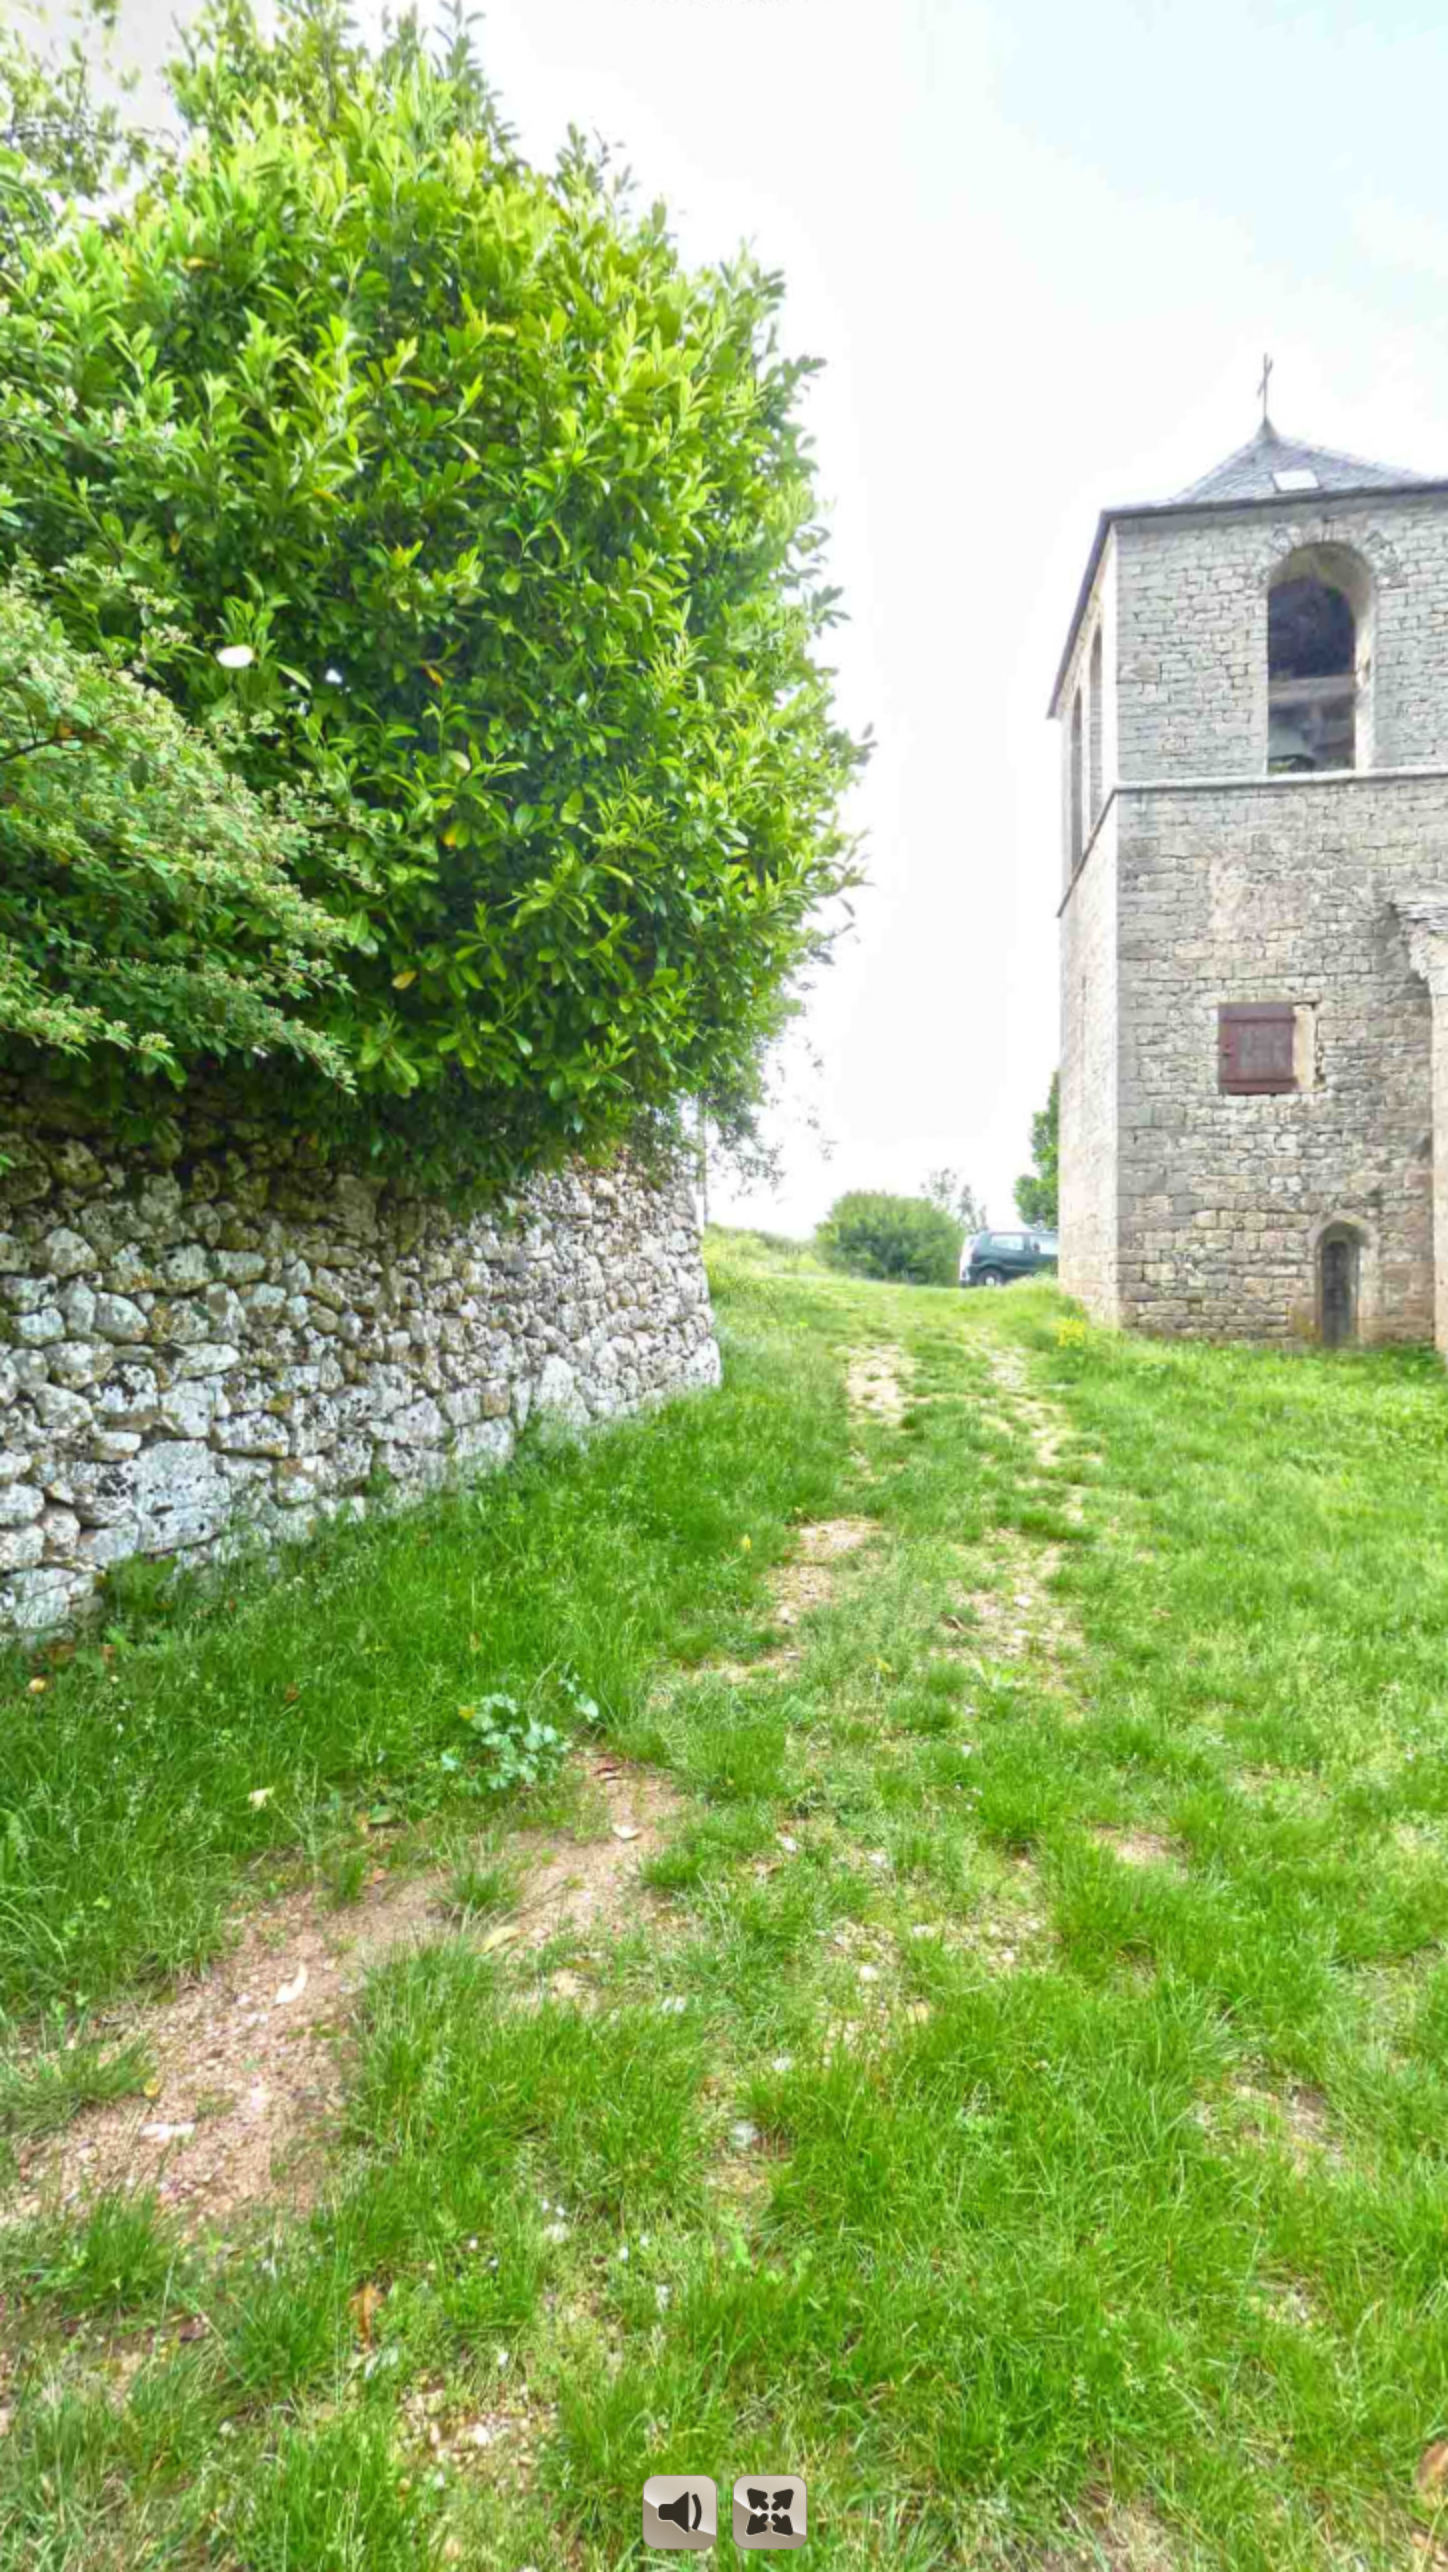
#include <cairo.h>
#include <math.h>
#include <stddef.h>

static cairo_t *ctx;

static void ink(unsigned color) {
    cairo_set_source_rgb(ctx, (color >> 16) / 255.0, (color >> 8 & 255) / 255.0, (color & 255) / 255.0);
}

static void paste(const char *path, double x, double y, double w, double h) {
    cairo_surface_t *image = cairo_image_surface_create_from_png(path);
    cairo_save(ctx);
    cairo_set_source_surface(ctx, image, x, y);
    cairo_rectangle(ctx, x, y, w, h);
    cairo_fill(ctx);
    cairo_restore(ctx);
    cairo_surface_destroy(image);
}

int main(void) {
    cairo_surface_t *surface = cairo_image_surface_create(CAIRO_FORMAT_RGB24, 1448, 2572);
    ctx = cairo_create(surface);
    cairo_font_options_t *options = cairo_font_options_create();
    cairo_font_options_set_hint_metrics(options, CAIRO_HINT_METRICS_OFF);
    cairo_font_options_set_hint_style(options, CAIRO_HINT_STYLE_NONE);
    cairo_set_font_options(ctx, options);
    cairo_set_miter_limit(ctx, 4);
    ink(0xffffff);
    cairo_paint(ctx);
    paste("pic1.png", 0, 0, 1448, 2572);
    paste("pic2.png", 642, 2474, 76, 76);
    paste("pic3.png", 732, 2474, 76, 76);
    cairo_surface_write_to_png(surface, "screenshot.png");
    cairo_font_options_destroy(options);
    cairo_destroy(ctx);
    cairo_surface_destroy(surface);
    return 0;
}
